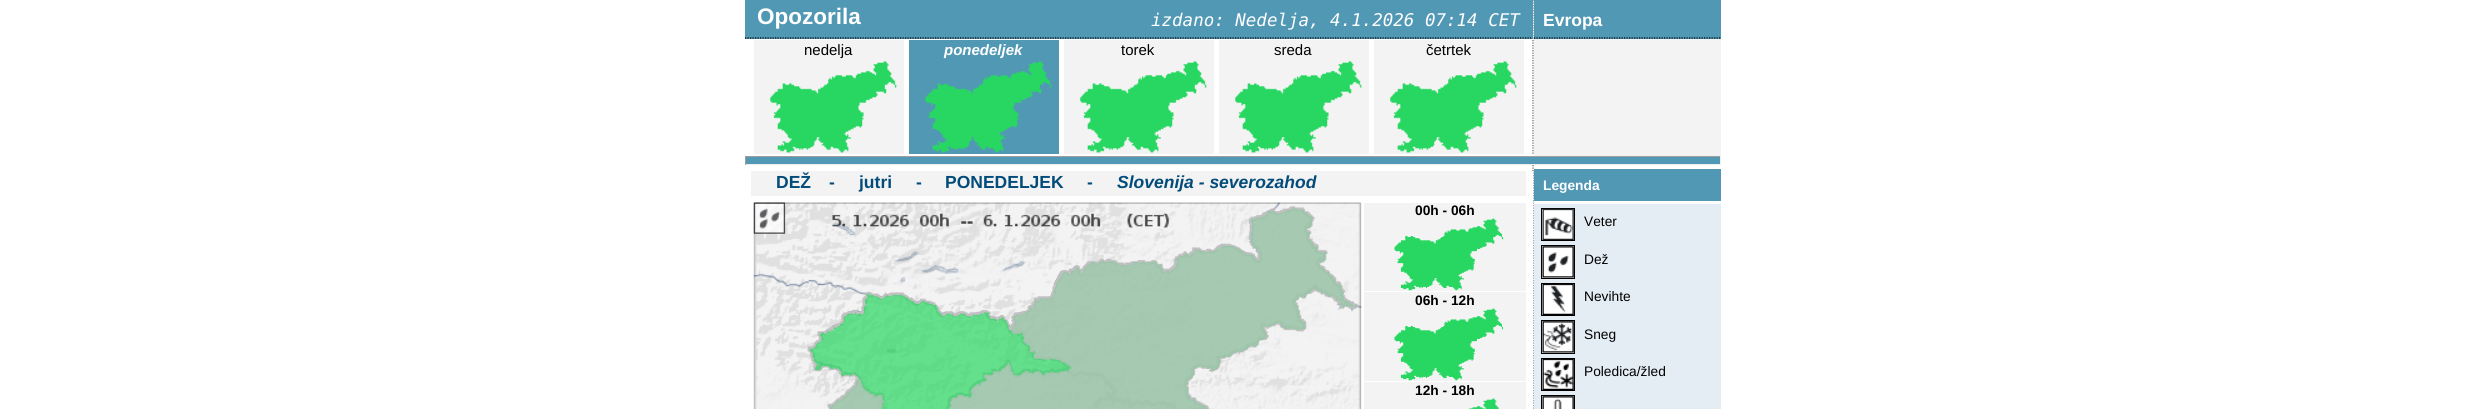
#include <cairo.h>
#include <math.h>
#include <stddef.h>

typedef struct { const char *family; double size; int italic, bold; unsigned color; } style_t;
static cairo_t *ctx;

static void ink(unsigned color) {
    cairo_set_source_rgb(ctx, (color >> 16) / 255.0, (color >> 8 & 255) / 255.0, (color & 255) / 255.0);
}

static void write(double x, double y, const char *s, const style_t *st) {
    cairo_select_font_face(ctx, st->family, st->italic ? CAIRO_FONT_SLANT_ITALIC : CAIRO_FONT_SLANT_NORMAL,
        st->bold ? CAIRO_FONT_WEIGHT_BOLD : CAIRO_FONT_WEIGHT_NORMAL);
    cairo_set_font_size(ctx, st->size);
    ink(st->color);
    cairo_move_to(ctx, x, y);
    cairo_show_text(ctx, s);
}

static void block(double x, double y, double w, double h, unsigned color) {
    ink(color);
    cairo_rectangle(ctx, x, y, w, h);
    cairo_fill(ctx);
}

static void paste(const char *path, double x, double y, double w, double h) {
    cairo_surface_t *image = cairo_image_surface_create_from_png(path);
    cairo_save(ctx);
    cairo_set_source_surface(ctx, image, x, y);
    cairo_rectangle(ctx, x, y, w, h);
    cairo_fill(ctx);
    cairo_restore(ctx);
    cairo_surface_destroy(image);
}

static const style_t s1 = {"Liberation Sans", 22.5, 0, 1, 0xffffff};
static const style_t s2 = {"DejaVu Sans Mono", 17.5, 1, 0, 0xffffff};
static const style_t s3 = {"Liberation Sans", 15, 0, 0, 0x000000};
static const style_t s4 = {"Liberation Sans", 15, 1, 1, 0xffffff};
static const style_t s5 = {"Liberation Sans", 17.5, 0, 1, 0xffffff};
static const style_t s6 = {"Liberation Sans", 17.5, 0, 1, 0x034c7a};
static const style_t s7 = {"Liberation Sans", 17.5, 1, 1, 0x034c7a};
static const style_t s8 = {"Liberation Sans", 13.75, 0, 1, 0x000000};
static const style_t s9 = {"Liberation Sans", 13.75, 0, 1, 0xffffff};
static const style_t s10 = {"Liberation Sans", 13.75, 0, 0, 0x000000};

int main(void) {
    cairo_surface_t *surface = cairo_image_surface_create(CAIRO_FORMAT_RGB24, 2467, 409);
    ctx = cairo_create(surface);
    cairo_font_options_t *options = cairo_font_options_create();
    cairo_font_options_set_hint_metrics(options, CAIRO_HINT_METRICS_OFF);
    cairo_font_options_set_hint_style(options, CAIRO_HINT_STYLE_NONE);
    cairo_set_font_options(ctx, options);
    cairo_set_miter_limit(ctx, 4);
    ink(0xffffff);
    cairo_paint(ctx);
    cairo_new_path(ctx);
    cairo_move_to(ctx, 1533, 0);
    cairo_line_to(ctx, 1533, 154);
    ink(0x666666);
    cairo_set_line_width(ctx, 1.2);
    cairo_set_dash(ctx, (double[]){1.25, 1.25}, 2, 0);
    cairo_stroke(ctx);
    block(745, 0, 788, 39, 0x5198b5);
    cairo_new_path(ctx);
    cairo_move_to(ctx, 745, 38);
    cairo_line_to(ctx, 1532.5, 38);
    ink(0x000000);
    cairo_stroke(ctx);
    write(757, 24, "Opozorila", &s1);
    write(1151, 26, "izdano: Nedelja, 4.1.2026 07:14 CET", &s2);
    block(754, 40, 150, 114, 0xf3f3f3);
    write(804, 55, "nedelja", &s3);
    paste("pic1.png", 770, 61, 127, 92);
    block(909, 40, 150, 114, 0x5198b5);
    write(944, 55, "ponedeljek", &s4);
    paste("pic2.png", 925, 61, 127, 92);
    block(1064, 40, 150, 114, 0xf3f3f3);
    write(1121, 55, "torek", &s3);
    paste("pic1.png", 1080, 61, 127, 92);
    block(1219, 40, 150, 114, 0xf3f3f3);
    write(1274, 55, "sreda", &s3);
    paste("pic1.png", 1235, 61, 127, 92);
    block(1374, 40, 150, 114, 0xf3f3f3);
    write(1426, 55, "četrtek", &s3);
    paste("pic1.png", 1390, 61, 127, 92);
    block(1534, 0, 187, 39, 0x5198b5);
    cairo_new_path(ctx);
    cairo_move_to(ctx, 1534, 38);
    cairo_line_to(ctx, 1721, 38);
    ink(0x000000);
    cairo_stroke(ctx);
    write(1543, 26, "Evropa", &s5);
    block(1534, 39, 187, 117, 0xf3f3f3);
    block(746, 157, 974, 7, 0x5198b5);
    block(745, 156, 976, 1, 0x9f9f9f);
    block(1720, 156, 1, 9, 0xeeeeee);
    block(745, 164, 976, 1, 0xeeeeee);
    block(745, 156, 1, 9, 0x9f9f9f);
    cairo_new_path(ctx);
    cairo_move_to(ctx, 1533, 165);
    cairo_line_to(ctx, 1533, 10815);
    ink(0x666666);
    cairo_stroke(ctx);
    block(1532, 171, 1, 238, 0xffffff);
    block(751, 171, 775, 25, 0xf3f3f3);
    write(776, 188, "DEŽ", &s6);
    write(829, 188, "-", &s6);
    write(859, 188, "jutri", &s6);
    write(916, 188, "-", &s6);
    write(945, 188, "PONEDELJEK", &s6);
    write(1087, 188, "-", &s6);
    write(1117, 188, "Slovenija - severozahod", &s7);
    block(1359, 203, 2, 206, 0xdcdcdc);
    paste("pic3.png", 753, 202, 609, 207);
    paste("pic5.png", 807, 206, 551, 203);
    paste("pic4.png", 753, 202, 604, 207);
    paste("pic6.png", 830, 208, 527, 201);
    block(1364, 203, 162, 206, 0xf3f3f3);
    block(1364, 291, 162, 1, 0xffffff);
    write(1415, 215, "00h - 06h", &s8);
    paste("pic7.png", 1394, 218, 110, 73);
    block(1364, 381, 162, 1, 0xffffff);
    write(1415, 305, "06h - 12h", &s8);
    paste("pic7.png", 1394, 308, 110, 73);
    write(1415, 395, "12h - 18h", &s8);
    paste("pic8.png", 1469, 398, 30, 11);
    block(1534, 204, 187, 205, 0xe5edf4);
    block(1534, 169, 187, 32, 0x5198b5);
    write(1543, 190, "Legenda", &s9);
    cairo_rectangle(ctx, 1541.5, 208.5, 33, 32);
    cairo_fill_preserve(ctx);
    ink(0x000000);
    cairo_set_line_width(ctx, 1);
    cairo_set_dash(ctx, NULL, 0, 0);
    cairo_stroke(ctx);
    paste("pic9.png", 1542, 208, 32, 32);
    write(1584, 226, "Veter", &s10);
    ink(0xffffff);
    cairo_rectangle(ctx, 1541.5, 245.5, 33, 33);
    cairo_fill_preserve(ctx);
    ink(0x000000);
    cairo_stroke(ctx);
    paste("pic10.png", 1542, 246, 32, 32);
    write(1584, 264, "Dež", &s10);
    ink(0xffffff);
    cairo_rectangle(ctx, 1541.5, 283.5, 33, 32);
    cairo_fill_preserve(ctx);
    ink(0x000000);
    cairo_stroke(ctx);
    paste("pic11.png", 1542, 284, 32, 31);
    write(1584, 301, "Nevihte", &s10);
    ink(0xffffff);
    cairo_rectangle(ctx, 1541.5, 320.5, 33, 33);
    cairo_fill_preserve(ctx);
    ink(0x000000);
    cairo_stroke(ctx);
    paste("pic12.png", 1542, 321, 32, 32);
    write(1584, 339, "Sneg", &s10);
    ink(0xffffff);
    cairo_rectangle(ctx, 1541.5, 358.5, 33, 32);
    cairo_fill_preserve(ctx);
    ink(0x000000);
    cairo_stroke(ctx);
    paste("pic13.png", 1542, 359, 32, 31);
    write(1584, 376, "Poledica/žled", &s10);
    ink(0xffffff);
    cairo_rectangle(ctx, 1541.5, 395.5, 33, 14);
    cairo_fill_preserve(ctx);
    ink(0x000000);
    cairo_stroke(ctx);
    paste("pic14.png", 1542, 396, 32, 13);
    cairo_surface_write_to_png(surface, "screenshot.png");
    cairo_font_options_destroy(options);
    cairo_destroy(ctx);
    cairo_surface_destroy(surface);
    return 0;
}
